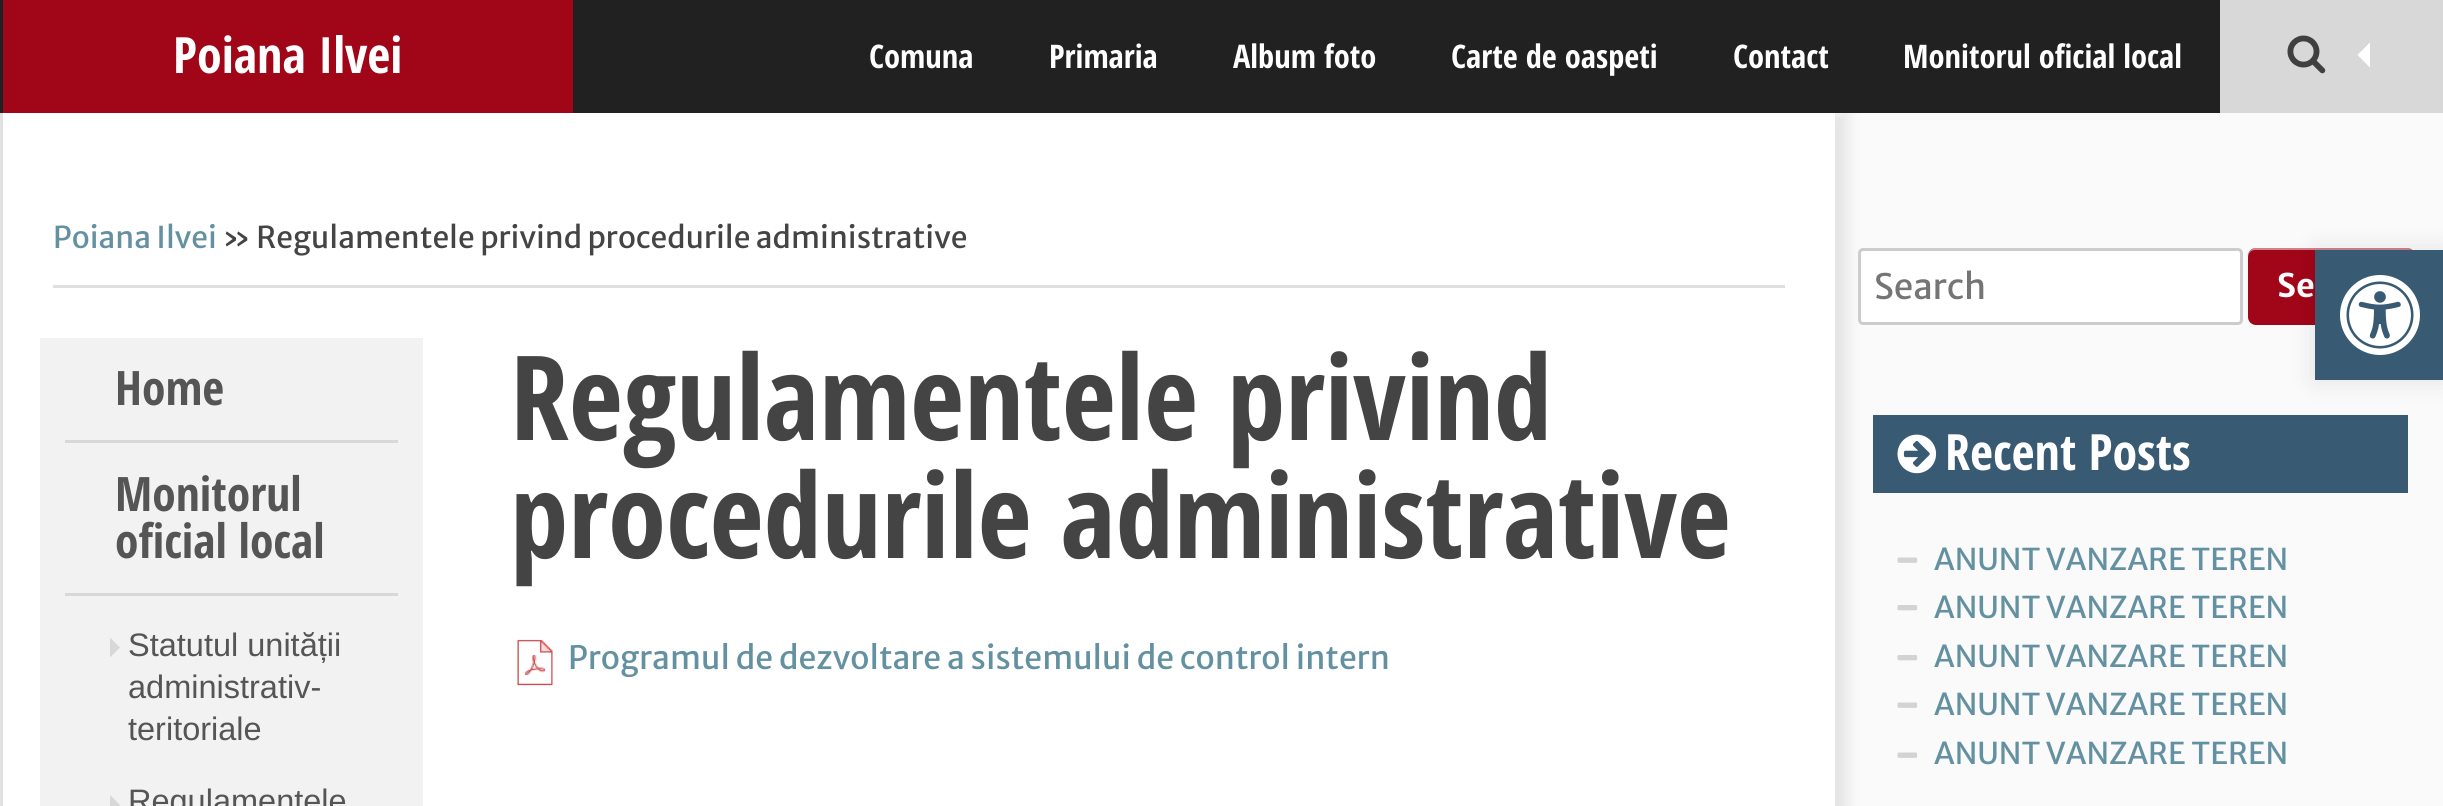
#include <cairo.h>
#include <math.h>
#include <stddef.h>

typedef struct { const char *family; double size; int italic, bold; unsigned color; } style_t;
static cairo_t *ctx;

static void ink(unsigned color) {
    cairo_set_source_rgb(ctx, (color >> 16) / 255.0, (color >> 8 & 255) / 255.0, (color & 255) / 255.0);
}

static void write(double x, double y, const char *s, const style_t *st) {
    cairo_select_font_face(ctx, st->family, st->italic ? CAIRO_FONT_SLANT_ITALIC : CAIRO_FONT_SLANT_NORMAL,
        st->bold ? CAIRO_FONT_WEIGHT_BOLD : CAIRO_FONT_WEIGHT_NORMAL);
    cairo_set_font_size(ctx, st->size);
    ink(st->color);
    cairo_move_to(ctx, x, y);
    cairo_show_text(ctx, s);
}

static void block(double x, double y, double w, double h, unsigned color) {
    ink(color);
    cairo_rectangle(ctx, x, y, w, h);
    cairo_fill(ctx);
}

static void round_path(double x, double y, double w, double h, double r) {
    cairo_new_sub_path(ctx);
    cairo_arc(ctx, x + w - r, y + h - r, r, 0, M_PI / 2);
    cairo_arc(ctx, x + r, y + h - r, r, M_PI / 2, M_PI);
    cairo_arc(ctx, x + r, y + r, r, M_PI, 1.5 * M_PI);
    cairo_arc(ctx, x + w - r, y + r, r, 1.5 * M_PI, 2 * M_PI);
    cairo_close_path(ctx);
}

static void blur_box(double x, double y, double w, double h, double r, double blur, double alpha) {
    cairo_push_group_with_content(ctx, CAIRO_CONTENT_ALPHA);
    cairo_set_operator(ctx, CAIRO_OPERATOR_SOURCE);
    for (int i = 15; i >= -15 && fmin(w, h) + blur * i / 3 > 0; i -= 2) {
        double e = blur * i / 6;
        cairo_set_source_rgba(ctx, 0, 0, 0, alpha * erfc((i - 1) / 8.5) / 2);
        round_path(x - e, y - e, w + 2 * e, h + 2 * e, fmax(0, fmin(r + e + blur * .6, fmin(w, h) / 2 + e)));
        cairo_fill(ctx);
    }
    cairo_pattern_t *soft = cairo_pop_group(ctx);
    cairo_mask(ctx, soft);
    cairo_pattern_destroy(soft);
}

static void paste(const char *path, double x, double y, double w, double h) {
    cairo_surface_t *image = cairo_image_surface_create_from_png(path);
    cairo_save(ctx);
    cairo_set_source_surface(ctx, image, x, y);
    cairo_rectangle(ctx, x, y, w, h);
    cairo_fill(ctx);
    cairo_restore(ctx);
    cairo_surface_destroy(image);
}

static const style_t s1 = {"Open Sans Condensed", 50, 0, 1, 0xffffff};
static const style_t s2 = {"Open Sans Condensed", 32.5, 0, 1, 0xffffff};
static const style_t s3 = {"Merriweather Sans", 30, 0, 0, 0x6491a1};
static const style_t s4 = {"Merriweather Sans", 30, 0, 0, 0x444444};
static const style_t s5 = {"Open Sans Condensed", 47.5, 0, 1, 0x555555};
static const style_t s6 = {"Liberation Sans", 32.5, 0, 0, 0x555555};
static const style_t s7 = {"Open Sans Condensed", 117.5, 0, 1, 0x444444};
static const style_t s8 = {"Merriweather Sans", 32, 0, 0, 0x6491a1};
static const style_t s9 = {"Merriweather Sans", 35, 0, 0, 0x757575};
static const style_t s10 = {"Merriweather Sans", 32.5, 0, 1, 0xffffff};

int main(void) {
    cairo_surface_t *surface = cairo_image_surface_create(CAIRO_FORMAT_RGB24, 2443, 806);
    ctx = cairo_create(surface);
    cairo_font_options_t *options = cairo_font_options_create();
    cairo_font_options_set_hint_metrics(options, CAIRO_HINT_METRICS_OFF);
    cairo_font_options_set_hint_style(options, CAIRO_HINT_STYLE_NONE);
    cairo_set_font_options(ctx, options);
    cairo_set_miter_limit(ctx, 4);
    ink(0xfafafa);
    cairo_paint(ctx);
    ink(0xffffff);
    round_path(1859.5, 249.5, 382, 74, 3.5);
    cairo_fill_preserve(ctx);
    ink(0xcccccc);
    cairo_set_line_width(ctx, 3);
    cairo_stroke(ctx);
    ink(0xe5e5e5);
    blur_box(13, 113, 1835, 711, 0, 6, 1);
    block(0, 0, 2220, 113, 0x212121);
    block(3, 0, 570, 113, 0xa10518);
    write(173, 73, "Poiana Ilvei", &s1);
    write(869, 68, "Comuna", &s2);
    write(1049, 68, "Primaria", &s2);
    write(1233, 68, "Album foto", &s2);
    write(1451, 68, "Carte de oaspeti", &s2);
    write(1733, 68, "Contact", &s2);
    write(1903, 68, "Monitorul oficial local", &s2);
    block(2220, 0, 223, 113, 0xd8d8d8);
    paste("pic1.png", 2287, 35, 39, 39);
    ink(0xffffff);
    cairo_new_path(ctx);
    cairo_move_to(ctx, 2370, 42.5);
    cairo_line_to(ctx, 2370, 67.5);
    cairo_line_to(ctx, 2357.5, 55);
    cairo_close_path(ctx);
    cairo_fill(ctx);
    block(3, 113, 1832, 693, 0xffffff);
    block(0, 113, 3, 693, 0xe2e0e0);
    block(53, 285, 1732, 3, 0xdfdfdf);
    write(53, 248, "Poiana Ilvei", &s3);
    write(222, 248, "» Regulamentele privind procedurile administrative", &s4);
    block(40, 338, 383, 468, 0xf2f2f2);
    block(65, 440, 333, 3, 0xd8d8d8);
    write(115, 405, "Home", &s5);
    block(65, 593, 333, 3, 0xd8d8d8);
    write(115, 511, "Monitorul", &s5);
    write(115, 558, "oficial local", &s5);
    ink(0xd8d8d8);
    cairo_new_path(ctx);
    cairo_move_to(ctx, 110, 657.5);
    cairo_line_to(ctx, 110, 637.5);
    cairo_line_to(ctx, 120, 647.5);
    cairo_close_path(ctx);
    cairo_fill(ctx);
    write(128, 656, "Statutul unității", &s6);
    write(128, 698, "administrativ-", &s6);
    write(128, 740, "teritoriale", &s6);
    ink(0xd8d8d8);
    cairo_new_path(ctx);
    cairo_move_to(ctx, 110, 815);
    cairo_line_to(ctx, 110, 795);
    cairo_line_to(ctx, 120, 805);
    cairo_close_path(ctx);
    cairo_fill(ctx);
    write(128, 812, "Regulamentele", &s6);
    write(510, 440, "Regulamentele privind", &s7);
    write(510, 558, "procedurile administrative", &s7);
    paste("pic2.png", 517, 639, 36, 47);
    write(568, 669, "Programul de dezvoltare a sistemului de control intern", &s8);
    write(1874, 299, "Search", &s9);
    ink(0xa10518);
    round_path(2248, 248, 167, 77, 8);
    cairo_fill(ctx);
    cairo_set_source_rgba(ctx, 1, 1, 1, 0.5);
    cairo_new_path(ctx);
    cairo_move_to(ctx, 2255, 250);
    cairo_line_to(ctx, 2408, 250);
    cairo_curve_to(ctx, 2412, 250, 2415, 253, 2415, 258);
    cairo_line_to(ctx, 2415, 256);
    cairo_curve_to(ctx, 2415, 252, 2411, 248, 2407, 248);
    cairo_line_to(ctx, 2256, 248);
    cairo_curve_to(ctx, 2252, 248, 2248, 252, 2248, 256);
    cairo_line_to(ctx, 2248, 258);
    cairo_curve_to(ctx, 2248, 253, 2251, 250, 2255, 250);
    cairo_close_path(ctx);
    cairo_fill(ctx);
    write(2277, 297, "Se", &s10);
    block(1873, 415, 535, 78, 0x385a72);
    paste("pic3.png", 1897, 434, 40, 40);
    write(1945, 470, "Recent Posts", &s1);
    paste("pic4.png", 1897, 557, 21, 6);
    write(1934, 570, "ANUNT VANZARE TEREN", &s3);
    paste("pic5.png", 1897, 605, 21, 6);
    write(1934, 618, "ANUNT VANZARE TEREN", &s3);
    paste("pic5.png", 1897, 655, 21, 6);
    write(1934, 667, "ANUNT VANZARE TEREN", &s3);
    paste("pic4.png", 1897, 702, 21, 6);
    write(1934, 715, "ANUNT VANZARE TEREN", &s3);
    paste("pic4.png", 1897, 752, 21, 6);
    write(1934, 764, "ANUNT VANZARE TEREN", &s3);
    ink(0x000000);
    blur_box(2315, 250, 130, 130, 0, 12.5, 0.1);
    block(2315, 250, 128, 130, 0x385a72);
    paste("pic6.png", 2340, 275, 80, 80);
    cairo_surface_write_to_png(surface, "screenshot.png");
    cairo_font_options_destroy(options);
    cairo_destroy(ctx);
    cairo_surface_destroy(surface);
    return 0;
}
